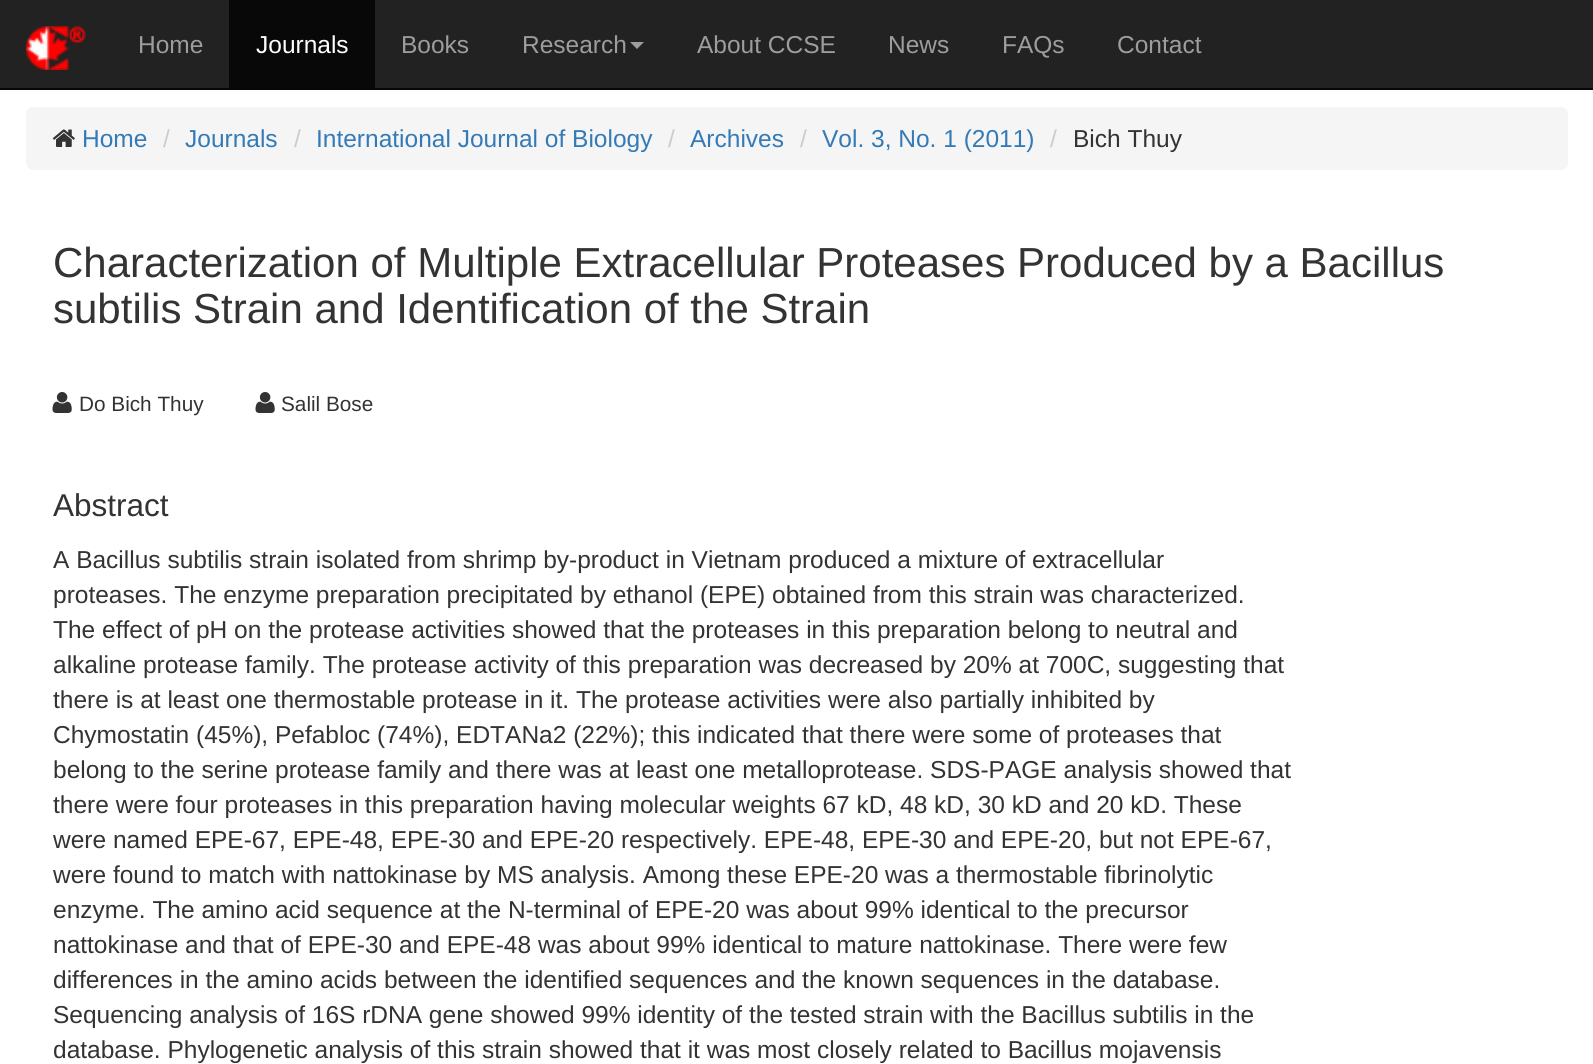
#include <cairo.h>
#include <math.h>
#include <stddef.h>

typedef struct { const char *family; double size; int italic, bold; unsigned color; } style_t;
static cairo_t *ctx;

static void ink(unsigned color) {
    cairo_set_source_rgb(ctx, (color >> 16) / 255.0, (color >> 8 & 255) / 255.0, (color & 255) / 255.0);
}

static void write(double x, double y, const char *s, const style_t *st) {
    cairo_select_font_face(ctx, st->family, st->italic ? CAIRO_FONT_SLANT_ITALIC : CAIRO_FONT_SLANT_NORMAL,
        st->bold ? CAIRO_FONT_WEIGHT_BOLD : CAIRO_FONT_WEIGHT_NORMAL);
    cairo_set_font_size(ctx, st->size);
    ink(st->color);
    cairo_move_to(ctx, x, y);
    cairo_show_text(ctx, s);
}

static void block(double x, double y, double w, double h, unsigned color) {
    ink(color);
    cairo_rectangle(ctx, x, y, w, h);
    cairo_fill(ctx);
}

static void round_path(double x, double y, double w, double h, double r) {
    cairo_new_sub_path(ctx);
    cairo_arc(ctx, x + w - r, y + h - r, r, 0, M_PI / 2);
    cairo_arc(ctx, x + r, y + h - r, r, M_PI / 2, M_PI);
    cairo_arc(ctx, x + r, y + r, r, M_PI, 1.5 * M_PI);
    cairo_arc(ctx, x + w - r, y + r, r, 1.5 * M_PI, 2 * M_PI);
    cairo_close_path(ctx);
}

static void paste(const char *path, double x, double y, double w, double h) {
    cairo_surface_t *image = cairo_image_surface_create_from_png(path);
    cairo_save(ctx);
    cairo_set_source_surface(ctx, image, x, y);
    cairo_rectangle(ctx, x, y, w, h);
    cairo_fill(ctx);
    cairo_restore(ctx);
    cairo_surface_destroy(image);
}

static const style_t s1 = {"Liberation Sans", 24.5, 0, 0, 0x9d9d9d};
static const style_t s2 = {"Liberation Sans", 24.5, 0, 0, 0xffffff};
static const style_t s3 = {"Liberation Sans", 24.5, 0, 0, 0x337ab7};
static const style_t s4 = {"Liberation Sans", 24.5, 0, 0, 0xcccccc};
static const style_t s5 = {"Liberation Sans", 24.5, 0, 0, 0x333333};
static const style_t s6 = {"Liberation Sans", 42, 0, 0, 0x333333};
static const style_t s7 = {"Liberation Sans", 20.75, 0, 0, 0x333333};
static const style_t s8 = {"Liberation Sans", 31.5, 0, 0, 0x333333};

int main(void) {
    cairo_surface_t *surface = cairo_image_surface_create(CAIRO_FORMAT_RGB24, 1593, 1064);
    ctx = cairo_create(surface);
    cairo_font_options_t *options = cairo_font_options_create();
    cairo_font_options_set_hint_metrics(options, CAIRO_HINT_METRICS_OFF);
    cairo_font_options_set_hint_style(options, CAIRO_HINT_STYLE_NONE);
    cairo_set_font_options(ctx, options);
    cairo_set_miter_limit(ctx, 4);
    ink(0x222222);
    cairo_paint(ctx);
    block(0, 88, 1593, 2, 0x080808);
    paste("pic1.png", 26, 26, 60, 44);
    write(138, 53, "Home", &s1);
    block(229, 0, 146, 88, 0x080808);
    write(256, 53, "Journals", &s2);
    write(401, 53, "Books", &s1);
    write(522, 53, "Research", &s1);
    cairo_new_path(ctx);
    cairo_move_to(ctx, 630, 42);
    cairo_line_to(ctx, 644, 42);
    cairo_line_to(ctx, 637, 49);
    cairo_close_path(ctx);
    cairo_fill(ctx);
    write(697, 53, "About CCSE", &s1);
    write(888, 53, "News", &s1);
    write(1002, 53, "FAQs", &s1);
    write(1117, 53, "Contact", &s1);
    block(0, 90, 1593, 974, 0xffffff);
    ink(0xf5f5f5);
    round_path(26, 107, 1542, 63, 7);
    cairo_fill(ctx);
    paste("pic2.png", 52, 129, 23, 18);
    write(82, 147, "Home", &s3);
    write(163, 147, "/", &s4);
    write(185, 147, "Journals", &s3);
    write(294, 147, "/", &s4);
    write(316, 147, "International Journal of Biology", &s3);
    write(668, 147, "/", &s4);
    write(690, 147, "Archives", &s3);
    write(800, 147, "/", &s4);
    write(822, 147, "Vol. 3, No. 1 (2011)", &s3);
    write(1050, 147, "/", &s4);
    write(1073, 147, "Bich Thuy", &s5);
    write(53, 277, "Characterization of Multiple Extracellular Proteases Produced by a Bacillus", &s6);
    write(53, 323, "subtilis Strain and Identification of the Strain", &s6);
    paste("pic3.png", 52, 392, 20, 21);
    write(79, 411, "Do Bich Thuy", &s7);
    paste("pic3.png", 255, 392, 20, 21);
    write(281, 411, "Salil Bose", &s7);
    write(53, 516, "Abstract", &s8);
    write(53, 568, "A Bacillus subtilis strain isolated from shrimp by-product in Vietnam produced a mixture of extracellular", &s5);
    write(53, 603, "proteases. The enzyme preparation precipitated by ethanol (EPE) obtained from this strain was characterized.", &s5);
    write(53, 638, "The effect of pH on the protease activities showed that the proteases in this preparation belong to neutral and", &s5);
    write(53, 673, "alkaline protease family. The protease activity of this preparation was decreased by 20% at 700C, suggesting that", &s5);
    write(53, 708, "there is at least one thermostable protease in it. The protease activities were also partially inhibited by", &s5);
    write(53, 743, "Chymostatin (45%), Pefabloc (74%), EDTANa2 (22%); this indicated that there were some of proteases that", &s5);
    write(53, 778, "belong to the serine protease family and there was at least one metalloprotease. SDS-PAGE analysis showed that", &s5);
    write(53, 813, "there were four proteases in this preparation having molecular weights 67 kD, 48 kD, 30 kD and 20 kD. These", &s5);
    write(53, 848, "were named EPE-67, EPE-48, EPE-30 and EPE-20 respectively. EPE-48, EPE-30 and EPE-20, but not EPE-67,", &s5);
    write(53, 883, "were found to match with nattokinase by MS analysis. Among these EPE-20 was a thermostable fibrinolytic", &s5);
    write(53, 918, "enzyme. The amino acid sequence at the N-terminal of EPE-20 was about 99% identical to the precursor", &s5);
    write(53, 953, "nattokinase and that of EPE-30 and EPE-48 was about 99% identical to mature nattokinase. There were few", &s5);
    write(53, 988, "differences in the amino acids between the identified sequences and the known sequences in the database.", &s5);
    write(53, 1023, "Sequencing analysis of 16S rDNA gene showed 99% identity of the tested strain with the Bacillus subtilis in the", &s5);
    write(53, 1058, "database. Phylogenetic analysis of this strain showed that it was most closely related to Bacillus mojavensis", &s5);
    cairo_surface_write_to_png(surface, "screenshot.png");
    cairo_font_options_destroy(options);
    cairo_destroy(ctx);
    cairo_surface_destroy(surface);
    return 0;
}
